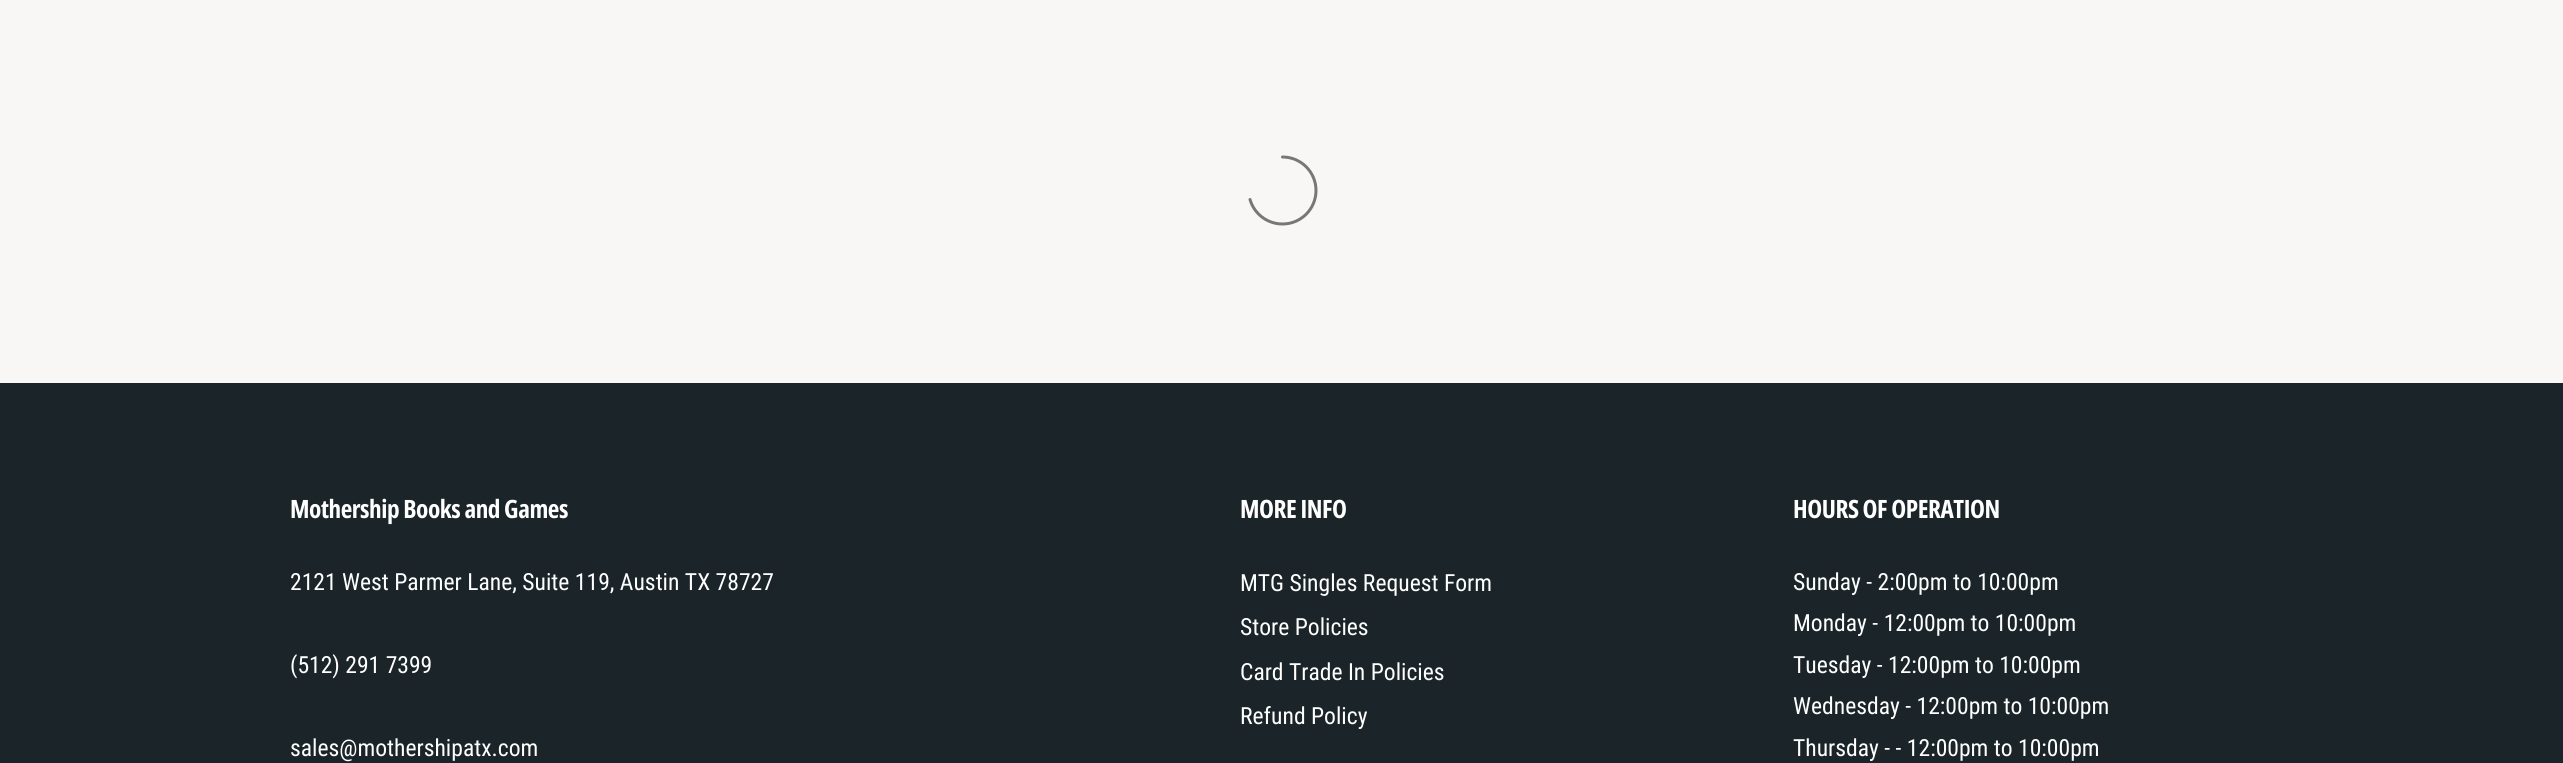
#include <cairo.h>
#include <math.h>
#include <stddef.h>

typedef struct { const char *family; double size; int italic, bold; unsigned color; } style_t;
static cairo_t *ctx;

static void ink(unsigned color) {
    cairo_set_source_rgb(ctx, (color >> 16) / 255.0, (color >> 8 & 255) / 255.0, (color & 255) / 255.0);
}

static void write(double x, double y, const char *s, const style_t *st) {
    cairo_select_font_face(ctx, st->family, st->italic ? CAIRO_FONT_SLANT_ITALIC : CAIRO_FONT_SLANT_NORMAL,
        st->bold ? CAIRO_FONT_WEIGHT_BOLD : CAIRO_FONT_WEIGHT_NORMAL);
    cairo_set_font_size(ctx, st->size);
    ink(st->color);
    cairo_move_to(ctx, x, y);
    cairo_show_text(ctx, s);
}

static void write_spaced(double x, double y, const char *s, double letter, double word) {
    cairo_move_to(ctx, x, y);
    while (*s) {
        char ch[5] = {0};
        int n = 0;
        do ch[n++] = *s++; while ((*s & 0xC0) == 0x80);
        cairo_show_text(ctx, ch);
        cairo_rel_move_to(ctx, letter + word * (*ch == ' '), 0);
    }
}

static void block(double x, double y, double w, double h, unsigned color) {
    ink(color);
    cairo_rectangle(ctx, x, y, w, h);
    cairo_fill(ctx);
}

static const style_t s1 = {"Roboto Condensed", 23.6, 0, 0, 0xffffff};

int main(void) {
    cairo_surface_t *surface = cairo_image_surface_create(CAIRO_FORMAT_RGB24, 2563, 763);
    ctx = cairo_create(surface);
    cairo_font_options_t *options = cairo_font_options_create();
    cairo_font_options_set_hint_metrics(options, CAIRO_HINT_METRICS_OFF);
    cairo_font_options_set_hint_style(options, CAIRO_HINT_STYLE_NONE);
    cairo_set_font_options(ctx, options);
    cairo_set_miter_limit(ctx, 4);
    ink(0xf9f7f6);
    cairo_paint(ctx);
    cairo_new_path(ctx);
    cairo_move_to(ctx, 1282.5, 157);
    cairo_curve_to(ctx, 1301, 157, 1316, 172, 1316, 190.5);
    cairo_curve_to(ctx, 1316, 209, 1301, 224, 1282.5, 224);
    cairo_curve_to(ctx, 1267, 224, 1254, 213.5, 1250, 199.5);
    ink(0x777777);
    cairo_set_line_width(ctx, 3);
    cairo_set_line_cap(ctx, CAIRO_LINE_CAP_ROUND);
    cairo_stroke(ctx);
    block(0, 383, 2563, 380, 0x1b2529);
    cairo_select_font_face(ctx, "Open Sans Condensed", CAIRO_FONT_SLANT_NORMAL, CAIRO_FONT_WEIGHT_BOLD);
    cairo_set_font_size(ctx, 25.25);
    ink(0xffffff);
    write_spaced(290, 518, "Mothership Books and Games", -0.45, 0);
    write(290, 590, "2121 West Parmer Lane, Suite 119, Austin TX 78727", &s1);
    write(290, 673, "(512) 291 7399", &s1);
    write(290, 756, "sales@mothershipatx.com", &s1);
    cairo_select_font_face(ctx, "Open Sans Condensed", CAIRO_FONT_SLANT_NORMAL, CAIRO_FONT_WEIGHT_BOLD);
    cairo_set_font_size(ctx, 25.25);
    write_spaced(1240, 518, "MORE INFO", -0.45, 0);
    write(1240, 591, "MTG Singles Request Form", &s1);
    write(1240, 635, "Store Policies", &s1);
    write(1240, 680, "Card Trade In Policies", &s1);
    write(1240, 724, "Refund Policy", &s1);
    cairo_select_font_face(ctx, "Open Sans Condensed", CAIRO_FONT_SLANT_NORMAL, CAIRO_FONT_WEIGHT_BOLD);
    cairo_set_font_size(ctx, 25.25);
    write_spaced(1793, 518, "HOURS OF OPERATION", -0.45, 0);
    write(1793, 590, "Sunday - 2:00pm to 10:00pm", &s1);
    write(1793, 631, "Monday - 12:00pm to 10:00pm", &s1);
    write(1793, 673, "Tuesday - 12:00pm to 10:00pm", &s1);
    write(1793, 714, "Wednesday - 12:00pm to 10:00pm", &s1);
    write(1793, 756, "Thursday - - 12:00pm to 10:00pm", &s1);
    cairo_surface_write_to_png(surface, "screenshot.png");
    cairo_font_options_destroy(options);
    cairo_destroy(ctx);
    cairo_surface_destroy(surface);
    return 0;
}
